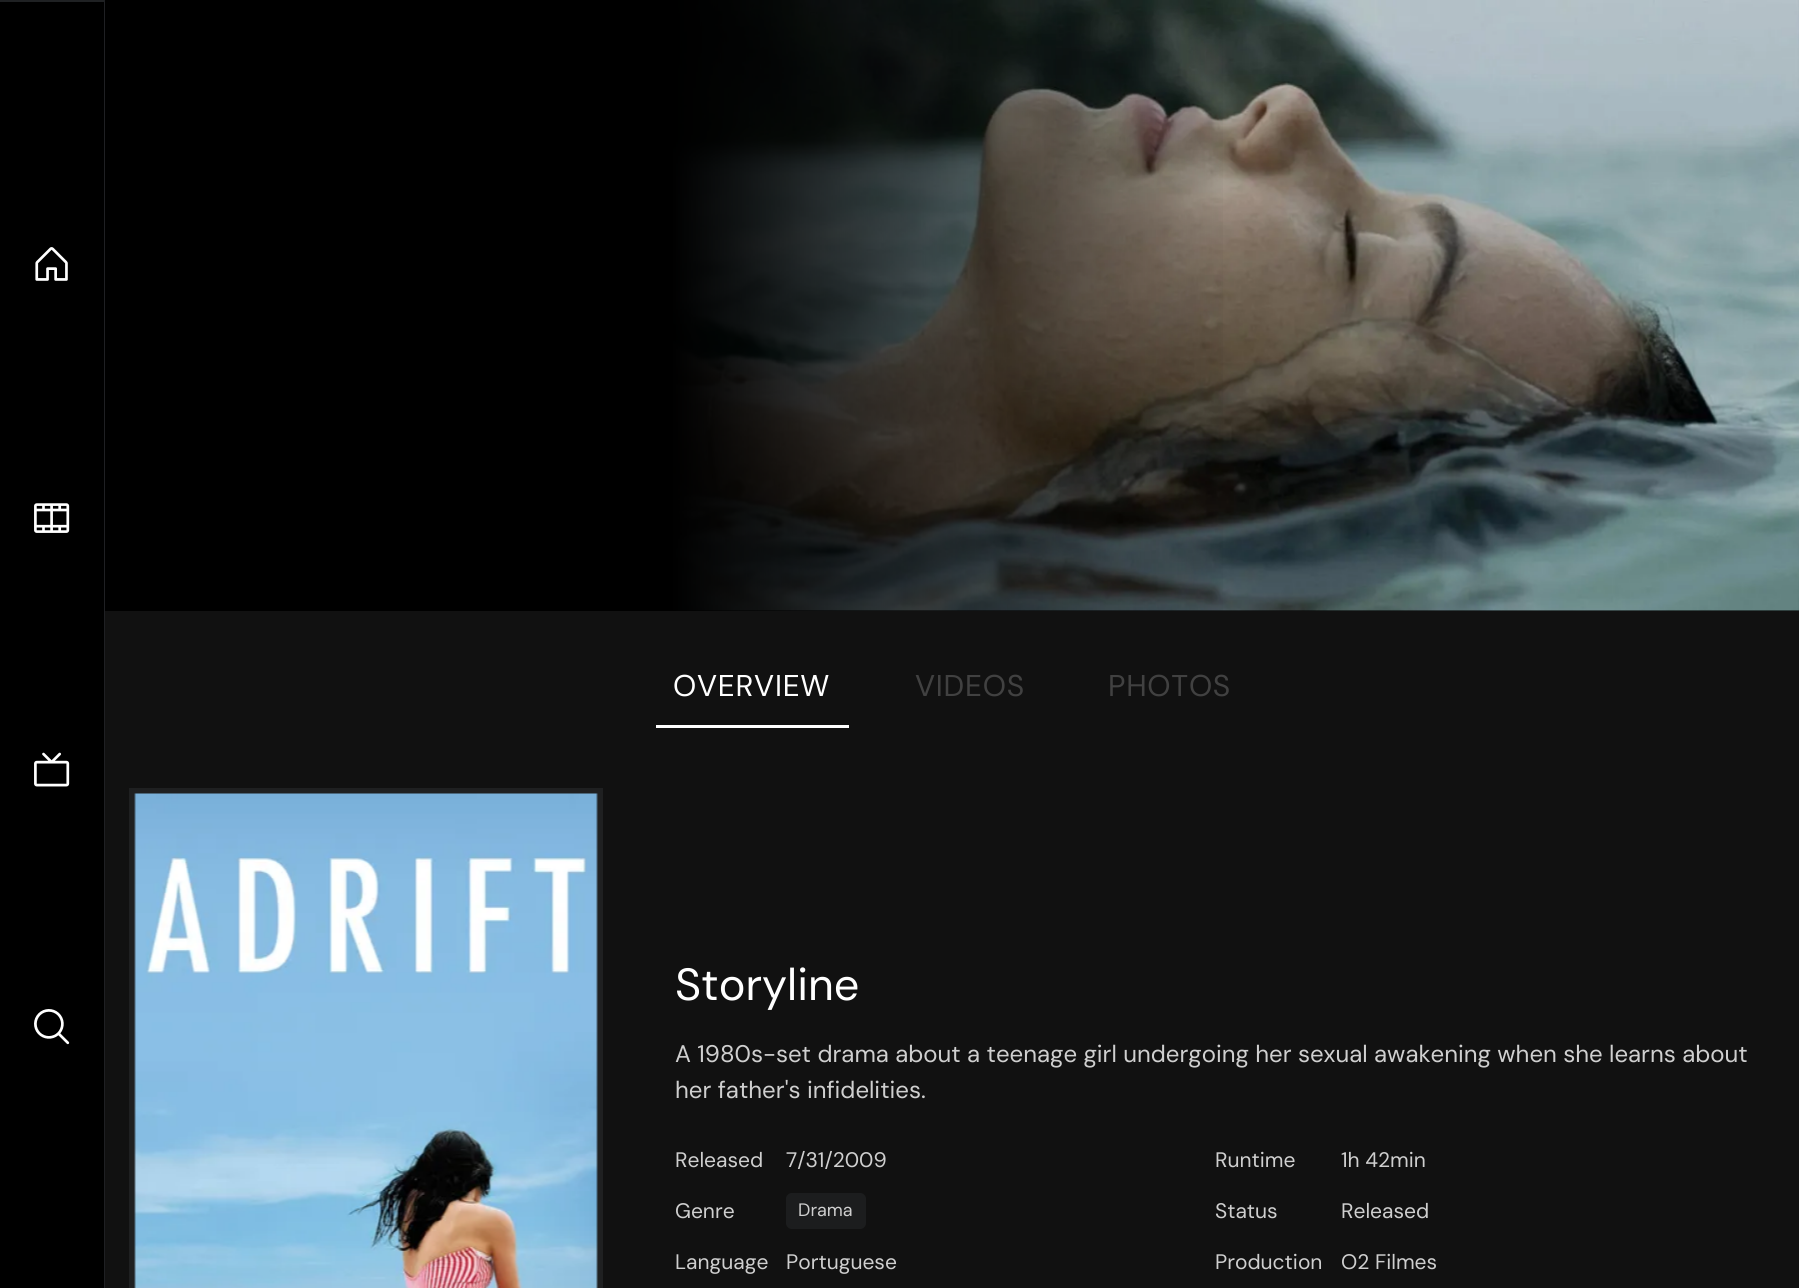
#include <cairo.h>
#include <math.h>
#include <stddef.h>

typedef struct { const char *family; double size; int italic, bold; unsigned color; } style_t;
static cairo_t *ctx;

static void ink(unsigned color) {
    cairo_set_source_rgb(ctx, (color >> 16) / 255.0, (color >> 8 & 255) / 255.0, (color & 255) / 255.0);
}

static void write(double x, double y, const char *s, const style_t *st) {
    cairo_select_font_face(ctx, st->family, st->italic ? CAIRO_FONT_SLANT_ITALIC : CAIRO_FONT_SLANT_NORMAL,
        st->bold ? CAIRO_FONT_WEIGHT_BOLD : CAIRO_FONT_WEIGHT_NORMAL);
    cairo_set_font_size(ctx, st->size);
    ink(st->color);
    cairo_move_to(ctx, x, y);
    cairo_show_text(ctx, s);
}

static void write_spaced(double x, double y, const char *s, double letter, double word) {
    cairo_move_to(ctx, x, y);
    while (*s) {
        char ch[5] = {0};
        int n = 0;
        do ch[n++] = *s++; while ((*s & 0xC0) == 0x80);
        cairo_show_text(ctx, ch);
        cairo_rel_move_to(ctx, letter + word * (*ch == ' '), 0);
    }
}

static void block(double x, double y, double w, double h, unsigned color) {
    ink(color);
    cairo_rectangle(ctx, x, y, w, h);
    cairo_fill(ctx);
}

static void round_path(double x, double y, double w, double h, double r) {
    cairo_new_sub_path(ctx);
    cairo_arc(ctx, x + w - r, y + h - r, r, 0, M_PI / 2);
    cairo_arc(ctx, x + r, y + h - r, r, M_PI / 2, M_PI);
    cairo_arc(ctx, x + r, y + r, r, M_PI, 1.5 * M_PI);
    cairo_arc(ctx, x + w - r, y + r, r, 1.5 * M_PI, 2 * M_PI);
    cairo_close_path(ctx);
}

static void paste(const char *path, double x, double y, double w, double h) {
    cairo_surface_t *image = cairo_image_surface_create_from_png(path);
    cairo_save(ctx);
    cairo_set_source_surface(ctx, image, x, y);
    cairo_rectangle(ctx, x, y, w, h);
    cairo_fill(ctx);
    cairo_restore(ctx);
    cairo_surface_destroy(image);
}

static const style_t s1 = {"DM Sans", 45, 0, 0, 0xffffff};
static const style_t s2 = {"DM Sans", 24, 0, 0, 0xcfcfcf};
static const style_t s3 = {"DM Sans", 21, 0, 0, 0xcfcfcf};
static const style_t s4 = {"DM Sans", 18, 0, 0, 0xcfcfcf};

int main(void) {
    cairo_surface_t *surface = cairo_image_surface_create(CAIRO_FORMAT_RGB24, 1799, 1288);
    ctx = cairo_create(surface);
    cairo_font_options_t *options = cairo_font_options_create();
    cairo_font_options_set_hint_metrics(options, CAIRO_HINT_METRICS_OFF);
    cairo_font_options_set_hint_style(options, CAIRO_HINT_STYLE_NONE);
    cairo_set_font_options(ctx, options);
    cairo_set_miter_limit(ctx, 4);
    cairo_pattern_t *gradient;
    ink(0x111111);
    cairo_paint(ctx);
    block(0, 0, 105, 1288, 0x000000);
    ink(0x1f2123);
    cairo_new_path(ctx);
    cairo_move_to(ctx, 0, 0);
    cairo_line_to(ctx, 105, 0);
    cairo_line_to(ctx, 104, 2);
    cairo_line_to(ctx, 0, 2);
    cairo_close_path(ctx);
    cairo_fill(ctx);
    cairo_set_source_rgba(ctx, 0.612, 0.639, 0.686, 0.2);
    cairo_new_path(ctx);
    cairo_move_to(ctx, 105, 0);
    cairo_line_to(ctx, 105, 1288);
    cairo_line_to(ctx, 104, 1288);
    cairo_line_to(ctx, 104, 2);
    cairo_close_path(ctx);
    cairo_fill(ctx);
    paste("pic1.png", 35, 247, 33, 34);
    paste("pic2.png", 34, 503, 36, 30);
    paste("pic3.png", 34, 752, 36, 35);
    paste("pic4.png", 34, 1009, 36, 36);
    block(673, 610, 1126, 1, 0x000000);
    paste("pic5.png", 673, 0, 1126, 611);
    gradient = cairo_pattern_create_linear(105, 305, 1235, 305);
    cairo_pattern_add_color_stop_rgba(gradient, 0, 0, 0, 0, 1);
    cairo_pattern_add_color_stop_rgba(gradient, 0.5, 0, 0, 0, 1);
    cairo_pattern_add_color_stop_rgba(gradient, 1, 0, 0, 0, 0);
    cairo_set_source(ctx, gradient);
    cairo_pattern_destroy(gradient);
    cairo_rectangle(ctx, 105, 0, 1118, 611);
    cairo_fill(ctx);
    block(656, 725, 193, 3, 0xffffff);
    cairo_select_font_face(ctx, "DM Sans", CAIRO_FONT_SLANT_NORMAL, CAIRO_FONT_WEIGHT_NORMAL);
    cairo_set_font_size(ctx, 30);
    write_spaced(673, 696, "OVERVIEW", 0.75, 0);
    ink(0x414141);
    write_spaced(915, 696, "VIDEOS", 0.75, 0);
    write_spaced(1108, 696, "PHOTOS", 0.75, 0);
    cairo_rectangle(ctx, 132, 791, 468, 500);
    ink(0x1f2021);
    cairo_set_line_width(ctx, 6);
    cairo_stroke(ctx);
    paste("pic6.png", 134, 793, 464, 495);
    write(675, 1000, "Storyline", &s1);
    write(675, 1062, "A 1980s-set drama about a teenage girl undergoing her sexual awakening when she learns about", &s2);
    write(675, 1098, "her father's infidelities.", &s2);
    write(675, 1167, "Released", &s3);
    write(786, 1167, "7/31/2009", &s3);
    write(1215, 1167, "Runtime", &s3);
    write(1341, 1167, "1h 42min", &s3);
    write(675, 1218, "Genre", &s3);
    ink(0x1c1d1e);
    round_path(786, 1193, 80, 36, 6);
    cairo_fill(ctx);
    write(798, 1216, "Drama", &s4);
    write(1215, 1218, "Status", &s3);
    write(1341, 1218, "Released", &s3);
    write(675, 1269, "Language", &s3);
    write(786, 1269, "Portuguese", &s3);
    write(1215, 1269, "Production", &s3);
    write(1341, 1269, "O2 Filmes", &s3);
    cairo_surface_write_to_png(surface, "screenshot.png");
    cairo_font_options_destroy(options);
    cairo_destroy(ctx);
    cairo_surface_destroy(surface);
    return 0;
}
